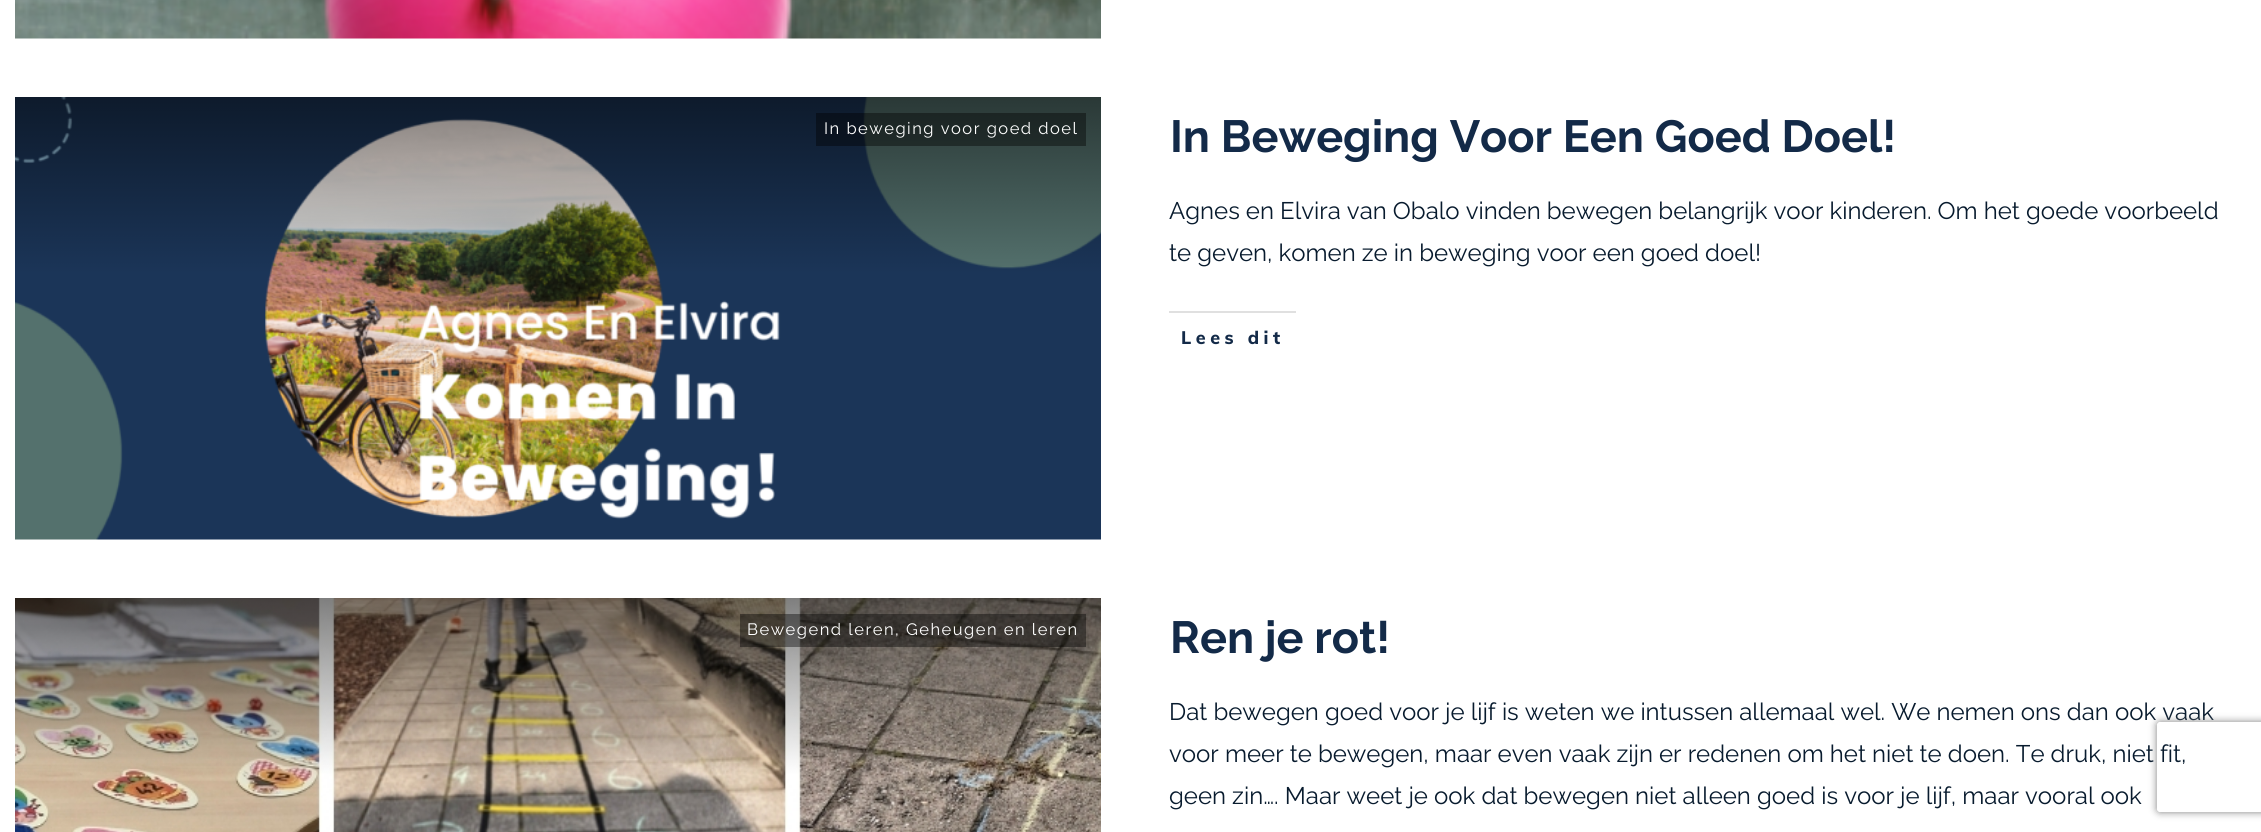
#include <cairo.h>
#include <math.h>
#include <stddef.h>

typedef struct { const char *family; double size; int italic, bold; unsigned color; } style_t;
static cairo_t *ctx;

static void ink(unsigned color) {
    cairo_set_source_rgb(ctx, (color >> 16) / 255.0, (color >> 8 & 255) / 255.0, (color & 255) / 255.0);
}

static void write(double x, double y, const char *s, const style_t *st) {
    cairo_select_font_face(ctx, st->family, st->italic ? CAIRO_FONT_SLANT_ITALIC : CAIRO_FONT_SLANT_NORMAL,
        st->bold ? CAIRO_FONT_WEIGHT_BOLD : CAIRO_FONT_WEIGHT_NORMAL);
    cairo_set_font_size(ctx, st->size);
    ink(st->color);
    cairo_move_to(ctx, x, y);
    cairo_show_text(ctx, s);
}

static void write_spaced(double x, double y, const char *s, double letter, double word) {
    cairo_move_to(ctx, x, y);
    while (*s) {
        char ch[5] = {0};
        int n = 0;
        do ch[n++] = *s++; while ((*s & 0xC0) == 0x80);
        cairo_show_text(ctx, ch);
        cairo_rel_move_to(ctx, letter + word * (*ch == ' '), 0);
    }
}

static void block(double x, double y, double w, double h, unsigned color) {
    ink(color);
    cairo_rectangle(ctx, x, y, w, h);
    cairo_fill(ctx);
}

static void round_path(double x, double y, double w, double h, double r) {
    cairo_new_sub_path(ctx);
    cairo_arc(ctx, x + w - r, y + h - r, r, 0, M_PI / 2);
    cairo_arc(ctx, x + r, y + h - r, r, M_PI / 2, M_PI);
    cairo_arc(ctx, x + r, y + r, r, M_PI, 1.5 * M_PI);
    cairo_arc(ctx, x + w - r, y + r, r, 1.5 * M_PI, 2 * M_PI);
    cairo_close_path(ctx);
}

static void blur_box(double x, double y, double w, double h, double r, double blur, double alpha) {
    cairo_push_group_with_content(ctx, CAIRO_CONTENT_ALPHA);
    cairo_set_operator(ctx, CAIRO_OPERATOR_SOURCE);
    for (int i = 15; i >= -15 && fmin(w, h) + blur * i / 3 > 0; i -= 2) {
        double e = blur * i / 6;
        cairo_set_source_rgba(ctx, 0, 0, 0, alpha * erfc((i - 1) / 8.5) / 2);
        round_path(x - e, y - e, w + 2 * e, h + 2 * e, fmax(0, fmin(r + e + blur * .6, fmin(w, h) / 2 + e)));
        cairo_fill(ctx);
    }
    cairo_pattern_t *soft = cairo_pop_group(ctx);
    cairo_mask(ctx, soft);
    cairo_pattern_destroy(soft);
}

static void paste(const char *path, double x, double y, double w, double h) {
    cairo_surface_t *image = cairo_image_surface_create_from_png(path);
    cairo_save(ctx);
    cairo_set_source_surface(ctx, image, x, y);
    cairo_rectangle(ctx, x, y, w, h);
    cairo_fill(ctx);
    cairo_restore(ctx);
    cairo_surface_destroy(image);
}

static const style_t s1 = {"Raleway", 45, 0, 1, 0x132a48};
static const style_t s2 = {"Raleway", 24, 0, 0, 0x081b2e};

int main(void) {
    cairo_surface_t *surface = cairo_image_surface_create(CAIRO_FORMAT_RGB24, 2261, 832);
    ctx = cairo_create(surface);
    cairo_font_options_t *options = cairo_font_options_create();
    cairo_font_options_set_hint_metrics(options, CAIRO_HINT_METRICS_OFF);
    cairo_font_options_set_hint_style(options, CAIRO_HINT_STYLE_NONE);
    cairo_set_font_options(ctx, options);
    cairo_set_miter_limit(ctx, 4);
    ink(0xffffff);
    cairo_paint(ctx);
    paste("pic1.png", 15, 0, 1086, 39);
    paste("pic2.png", 15, 97, 1086, 443);
    cairo_set_source_rgba(ctx, 0, 0, 0, 0.4);
    cairo_rectangle(ctx, 816, 113, 270, 33);
    cairo_fill(ctx);
    cairo_select_font_face(ctx, "Raleway", CAIRO_FONT_SLANT_NORMAL, CAIRO_FONT_WEIGHT_NORMAL);
    cairo_set_font_size(ctx, 16.5);
    ink(0xffffff);
    write_spaced(824, 134, "In beweging voor goed doel", 1.5, 0);
    write(1170, 152, "In Beweging Voor Een Goed Doel!", &s1);
    write(1169, 219, "Agnes en Elvira van Obalo vinden bewegen belangrijk voor kinderen. Om het goede voorbeeld", &s2);
    write(1169, 261, "te geven, komen ze in beweging voor een goed doel!", &s2);
    block(1169, 311, 127, 2, 0xe0e0e0);
    cairo_select_font_face(ctx, "Muli ExtraBold", CAIRO_FONT_SLANT_NORMAL, CAIRO_FONT_WEIGHT_NORMAL);
    cairo_set_font_size(ctx, 18);
    ink(0x132a48);
    write_spaced(1181, 344, "Lees dit", 4.5, 0);
    paste("pic3.png", 15, 598, 1086, 234);
    cairo_set_source_rgba(ctx, 0, 0, 0, 0.4);
    cairo_rectangle(ctx, 740, 614, 346, 33);
    cairo_fill(ctx);
    cairo_select_font_face(ctx, "Raleway", CAIRO_FONT_SLANT_NORMAL, CAIRO_FONT_WEIGHT_NORMAL);
    cairo_set_font_size(ctx, 16.5);
    ink(0xffffff);
    write_spaced(747, 635, "Bewegend leren, Geheugen en leren", 1.5, 0);
    write(1170, 653, "Ren je rot!", &s1);
    write(1169, 720, "Dat bewegen goed voor je lijf is weten we intussen allemaal wel. We nemen ons dan ook vaak", &s2);
    write(1169, 762, "voor meer te bewegen, maar even vaak zijn er redenen om het niet te doen. Te druk, niet fit,", &s2);
    write(1169, 804, "geen zin…. Maar weet je ook dat bewegen niet alleen goed is voor je lijf, maar vooral ook", &s2);
    cairo_save(ctx);
    cairo_set_fill_rule(ctx, CAIRO_FILL_RULE_EVEN_ODD);
    cairo_new_path(ctx);
    cairo_move_to(ctx, 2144, 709);
    cairo_line_to(ctx, 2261, 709);
    cairo_line_to(ctx, 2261, 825);
    cairo_line_to(ctx, 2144, 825);
    cairo_close_path(ctx);
    cairo_move_to(ctx, 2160, 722);
    cairo_line_to(ctx, 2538, 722);
    cairo_curve_to(ctx, 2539.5, 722, 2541, 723.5, 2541, 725);
    cairo_line_to(ctx, 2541, 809);
    cairo_curve_to(ctx, 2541, 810.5, 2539.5, 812, 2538, 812);
    cairo_line_to(ctx, 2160, 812);
    cairo_curve_to(ctx, 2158.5, 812, 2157, 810.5, 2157, 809);
    cairo_line_to(ctx, 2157, 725);
    cairo_curve_to(ctx, 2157, 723.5, 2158.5, 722, 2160, 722);
    cairo_close_path(ctx);
    cairo_clip(ctx);
    ink(0x808080);
    blur_box(2157, 722, 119, 90, 3, 4, 1);
    cairo_restore(ctx);
    cairo_surface_write_to_png(surface, "screenshot.png");
    cairo_font_options_destroy(options);
    cairo_destroy(ctx);
    cairo_surface_destroy(surface);
    return 0;
}
